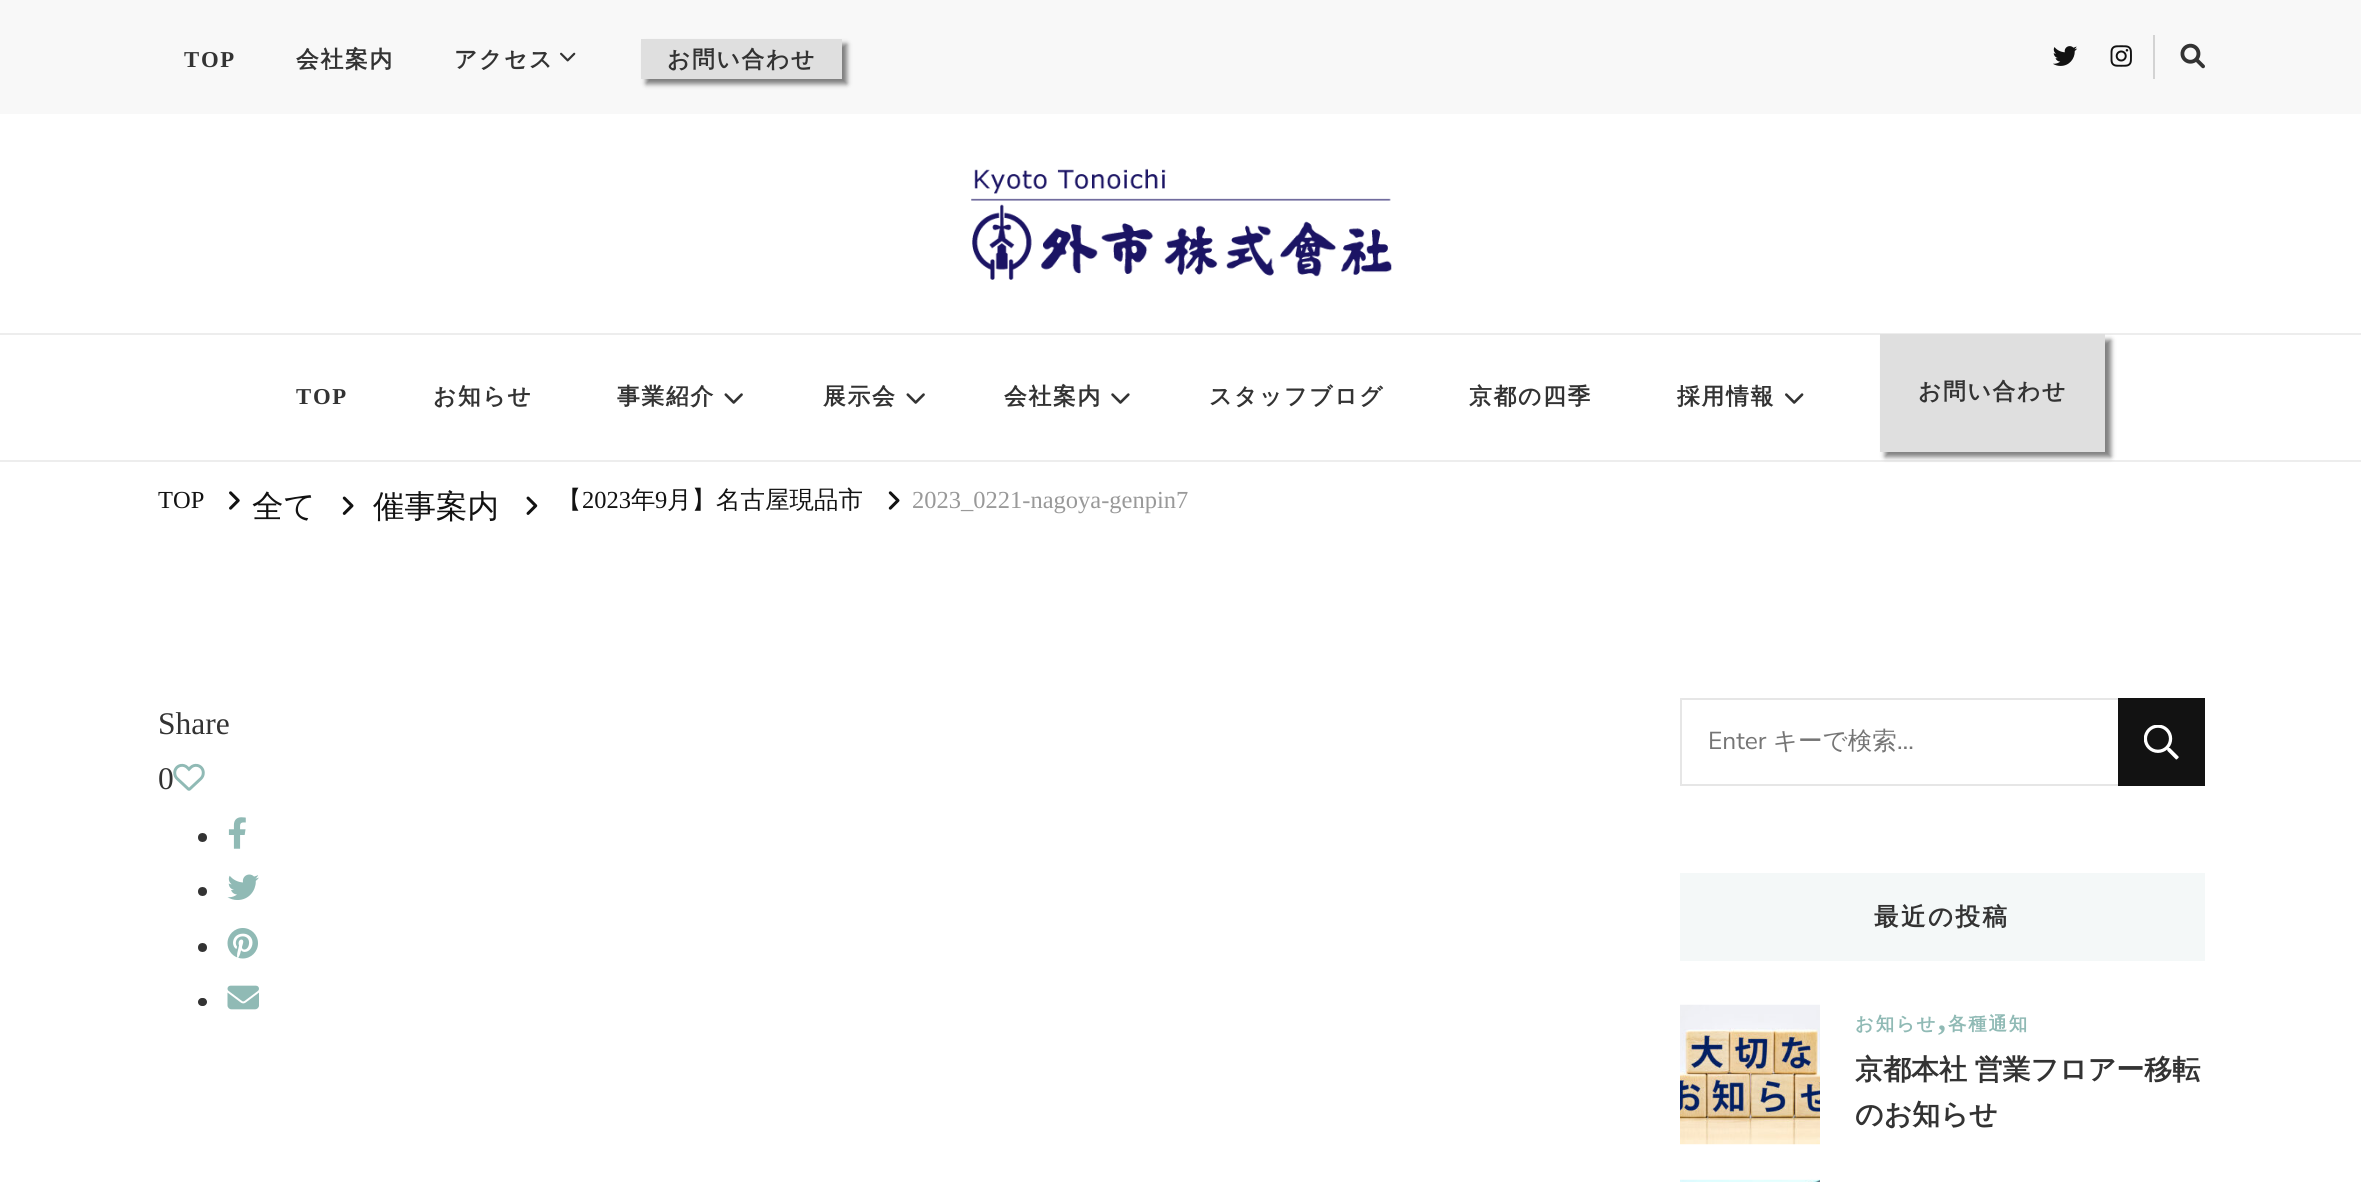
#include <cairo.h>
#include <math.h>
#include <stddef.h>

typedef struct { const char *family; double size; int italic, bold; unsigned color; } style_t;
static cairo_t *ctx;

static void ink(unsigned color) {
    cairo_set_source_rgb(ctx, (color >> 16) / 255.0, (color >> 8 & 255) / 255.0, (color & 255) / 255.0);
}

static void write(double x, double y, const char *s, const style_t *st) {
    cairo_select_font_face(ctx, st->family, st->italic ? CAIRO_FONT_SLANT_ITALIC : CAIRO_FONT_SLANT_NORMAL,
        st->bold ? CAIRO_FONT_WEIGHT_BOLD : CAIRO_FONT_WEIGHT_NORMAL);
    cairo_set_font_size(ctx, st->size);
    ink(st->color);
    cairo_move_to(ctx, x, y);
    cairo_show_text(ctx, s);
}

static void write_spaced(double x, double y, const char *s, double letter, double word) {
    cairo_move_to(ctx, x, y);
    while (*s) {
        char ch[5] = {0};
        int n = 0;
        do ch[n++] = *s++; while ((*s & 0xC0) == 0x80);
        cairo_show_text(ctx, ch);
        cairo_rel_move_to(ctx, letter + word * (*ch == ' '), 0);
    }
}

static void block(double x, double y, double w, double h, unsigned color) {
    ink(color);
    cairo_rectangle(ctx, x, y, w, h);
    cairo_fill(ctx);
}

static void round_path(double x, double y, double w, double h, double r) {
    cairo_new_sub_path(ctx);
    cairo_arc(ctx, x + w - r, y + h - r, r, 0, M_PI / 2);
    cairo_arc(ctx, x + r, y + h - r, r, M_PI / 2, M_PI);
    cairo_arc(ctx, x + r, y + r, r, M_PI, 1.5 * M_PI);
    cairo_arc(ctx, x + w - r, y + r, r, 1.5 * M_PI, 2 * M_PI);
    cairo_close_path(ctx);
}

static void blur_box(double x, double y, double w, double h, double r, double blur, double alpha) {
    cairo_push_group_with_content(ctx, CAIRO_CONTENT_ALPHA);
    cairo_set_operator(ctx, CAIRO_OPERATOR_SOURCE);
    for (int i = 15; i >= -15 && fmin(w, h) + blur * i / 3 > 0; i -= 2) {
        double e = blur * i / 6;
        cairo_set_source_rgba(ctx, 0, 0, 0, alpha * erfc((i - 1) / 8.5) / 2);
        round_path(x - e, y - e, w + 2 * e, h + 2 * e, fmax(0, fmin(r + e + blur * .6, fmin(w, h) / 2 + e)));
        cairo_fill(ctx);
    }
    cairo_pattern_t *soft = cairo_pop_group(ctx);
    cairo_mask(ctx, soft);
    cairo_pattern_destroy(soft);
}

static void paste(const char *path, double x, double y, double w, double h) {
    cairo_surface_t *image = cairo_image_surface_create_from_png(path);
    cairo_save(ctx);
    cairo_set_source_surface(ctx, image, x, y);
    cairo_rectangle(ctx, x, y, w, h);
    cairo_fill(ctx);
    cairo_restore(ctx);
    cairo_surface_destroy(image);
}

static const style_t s1 = {"Liberation Serif", 24.5, 0, 0, 0x121212};
static const style_t s2 = {"WenQuanYi Zen Hei Medium", 31.5, 0, 0, 0x121212};
static const style_t s3 = {"WenQuanYi Zen Hei Medium", 24.5, 0, 0, 0x121212};
static const style_t s4 = {"Liberation Serif", 24.5, 0, 0, 0x999999};
static const style_t s5 = {"Liberation Serif", 31.5, 0, 0, 0x333333};
static const style_t s6 = {"Nunito Sans", 24.5, 0, 0, 0x757575};
static const style_t s7 = {"WenQuanYi Zen Hei Medium", 24.5, 0, 0, 0x757575};
static const style_t s8 = {"WenQuanYi Zen Hei", 28, 0, 1, 0x333333};

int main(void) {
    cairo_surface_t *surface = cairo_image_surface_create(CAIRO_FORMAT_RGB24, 2361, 1182);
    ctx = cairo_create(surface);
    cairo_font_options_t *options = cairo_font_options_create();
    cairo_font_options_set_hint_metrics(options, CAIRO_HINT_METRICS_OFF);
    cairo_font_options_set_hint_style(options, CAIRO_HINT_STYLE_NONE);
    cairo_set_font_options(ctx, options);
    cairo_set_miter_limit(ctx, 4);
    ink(0xffffff);
    cairo_paint(ctx);
    block(0, 0, 2361, 114, 0xf8f8f8);
    cairo_select_font_face(ctx, "Liberation Serif", CAIRO_FONT_SLANT_NORMAL, CAIRO_FONT_WEIGHT_BOLD);
    cairo_set_font_size(ctx, 22.75);
    ink(0x333333);
    write_spaced(184, 67, "TOP", 1.75, 0);
    cairo_select_font_face(ctx, "WenQuanYi Zen Hei", CAIRO_FONT_SLANT_NORMAL, CAIRO_FONT_WEIGHT_BOLD);
    write_spaced(296, 67, "会社案内", 1.75, 0);
    write_spaced(454, 67, "アクセス", 1.75, 0);
    paste("pic1.png", 560, 52, 16, 10);
    ink(0x000000);
    blur_box(646, 44, 201, 40, 0, 2.5, 0.5);
    block(641, 39, 201, 40, 0xdfdfdf);
    ink(0x333333);
    write_spaced(667, 67, "お問い合わせ", 1.75, 0);
    paste("pic2.png", 2053, 46, 25, 20);
    paste("pic3.png", 2110, 45, 22, 22);
    block(2153, 35, 2, 44, 0xd3d3d3);
    paste("pic4.png", 2180, 43, 25, 26);
    paste("pic5.png", 971, 168, 421, 112);
    block(0, 333, 2361, 2, 0xededed);
    block(0, 460, 2361, 2, 0xededed);
    cairo_select_font_face(ctx, "Liberation Serif", CAIRO_FONT_SLANT_NORMAL, CAIRO_FONT_WEIGHT_BOLD);
    ink(0x333333);
    write_spaced(296, 404, "TOP", 1.75, 0);
    cairo_select_font_face(ctx, "WenQuanYi Zen Hei", CAIRO_FONT_SLANT_NORMAL, CAIRO_FONT_WEIGHT_BOLD);
    write_spaced(433, 404, "お知らせ", 1.75, 0);
    write_spaced(617, 404, "事業紹介", 1.75, 0);
    paste("pic6.png", 724, 393, 19, 11);
    write_spaced(823, 404, "展示会", 1.75, 0);
    paste("pic6.png", 906, 393, 19, 11);
    write_spaced(1004, 404, "会社案内", 1.75, 0);
    paste("pic7.png", 1111, 393, 19, 11);
    write_spaced(1209, 404, "スタッフブログ", 1.75, 0);
    write_spaced(1469, 404, "京都の四季", 1.75, 0);
    write_spaced(1677, 404, "採用情報", 1.75, 0);
    paste("pic8.png", 1785, 393, 19, 11);
    ink(0x000000);
    blur_box(1885, 340, 226, 117, 0, 2.5, 0.5);
    block(1880, 334, 225, 118, 0xdfdfdf);
    ink(0x333333);
    write_spaced(1918, 399, "お問い合わせ", 1.75, 0);
    write(158, 508, "TOP", &s1);
    paste("pic9.png", 229, 491, 11, 19);
    write(252, 517, "全て", &s2);
    paste("pic10.png", 342, 496, 12, 19);
    write(373, 517, "催事案内", &s2);
    paste("pic11.png", 526, 496, 12, 19);
    write(557, 508, "【", &s3);
    write(582, 508, "2023", &s1);
    write(631, 508, "年", &s3);
    write(655, 508, "9", &s1);
    write(667, 508, "月】名古屋現品市", &s3);
    paste("pic12.png", 888, 491, 12, 19);
    write(912, 508, "2023_0221-nagoya-genpin7", &s4);
    write(158, 734, "Share", &s5);
    write(158, 789, "0", &s5);
    paste("pic13.png", 173, 763, 32, 28);
    cairo_arc(ctx, 202.5, 837.5, 4.5, 0, 2 * M_PI);
    cairo_fill(ctx);
    paste("pic14.png", 228, 817, 18, 32);
    cairo_arc(ctx, 202.5, 891.5, 4.5, 0, 2 * M_PI);
    cairo_fill(ctx);
    paste("pic15.png", 227, 874, 32, 26);
    cairo_arc(ctx, 202.5, 947.5, 4.5, 0, 2 * M_PI);
    cairo_fill(ctx);
    paste("pic16.png", 227, 928, 31, 31);
    round_path(198, 998, 9, 8, 4);
    cairo_fill(ctx);
    paste("pic17.png", 227, 985, 32, 25);
    ink(0xe6e6e6);
    cairo_new_path(ctx);
    cairo_move_to(ctx, 1680, 698);
    cairo_line_to(ctx, 2118, 698);
    cairo_line_to(ctx, 2118, 700);
    cairo_line_to(ctx, 1682, 700);
    cairo_close_path(ctx);
    cairo_fill(ctx);
    cairo_new_path(ctx);
    cairo_move_to(ctx, 2118, 786);
    cairo_line_to(ctx, 1680, 786);
    cairo_line_to(ctx, 1682, 784);
    cairo_line_to(ctx, 2118, 784);
    cairo_close_path(ctx);
    cairo_fill(ctx);
    cairo_set_source_rgba(ctx, 0, 0, 0, 0.1);
    cairo_new_path(ctx);
    cairo_move_to(ctx, 1680, 786);
    cairo_line_to(ctx, 1680, 698);
    cairo_line_to(ctx, 1682, 700);
    cairo_line_to(ctx, 1682, 784);
    cairo_close_path(ctx);
    cairo_fill(ctx);
    write(1708, 749, "Enter", &s6);
    write(1773, 749, "キーで検索", &s7);
    write(1897, 749, "…", &s6);
    block(2118, 698, 87, 88, 0x121212);
    paste("pic18.png", 2144, 725, 35, 35);
    block(1680, 873, 525, 88, 0xf4f8f8);
    cairo_select_font_face(ctx, "WenQuanYi Zen Hei", CAIRO_FONT_SLANT_NORMAL, CAIRO_FONT_WEIGHT_BOLD);
    ink(0x333333);
    write_spaced(1874, 925, "最近の投稿", 2.5, 0);
    paste("pic19.png", 1680, 1004, 140, 141);
    cairo_set_font_size(ctx, 18.5);
    ink(0x90bab5);
    write_spaced(1855, 1030, "お知らせ", 1.75, 0);
    cairo_select_font_face(ctx, "Liberation Serif", CAIRO_FONT_SLANT_NORMAL, CAIRO_FONT_WEIGHT_BOLD);
    cairo_set_font_size(ctx, 31.5);
    write_spaced(1938, 1030, ",", 1.75, 0);
    cairo_select_font_face(ctx, "WenQuanYi Zen Hei", CAIRO_FONT_SLANT_NORMAL, CAIRO_FONT_WEIGHT_BOLD);
    cairo_set_font_size(ctx, 18.5);
    write_spaced(1948, 1030, "各種通知", 1.75, 0);
    cairo_set_font_size(ctx, 28);
    ink(0x333333);
    write_spaced(1855, 1079, "京都本社 営業フロアー移転", 0, -1);
    write(1855, 1124, "のお知らせ", &s8);
    paste("pic20.png", 1680, 1179, 140, 3);
    cairo_surface_write_to_png(surface, "screenshot.png");
    cairo_font_options_destroy(options);
    cairo_destroy(ctx);
    cairo_surface_destroy(surface);
    return 0;
}
